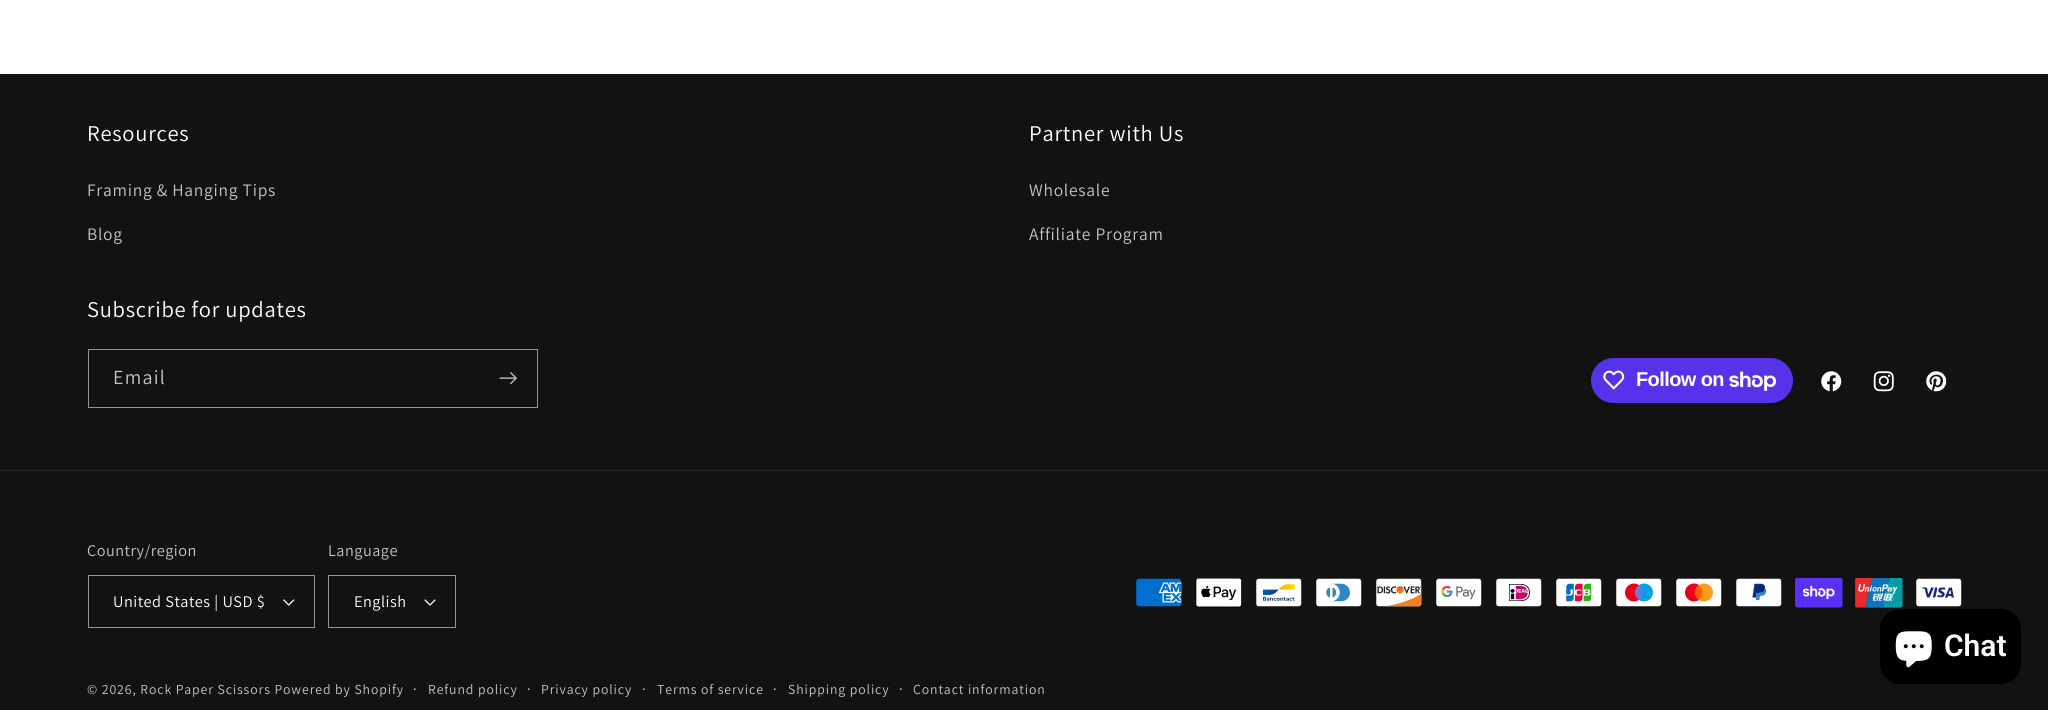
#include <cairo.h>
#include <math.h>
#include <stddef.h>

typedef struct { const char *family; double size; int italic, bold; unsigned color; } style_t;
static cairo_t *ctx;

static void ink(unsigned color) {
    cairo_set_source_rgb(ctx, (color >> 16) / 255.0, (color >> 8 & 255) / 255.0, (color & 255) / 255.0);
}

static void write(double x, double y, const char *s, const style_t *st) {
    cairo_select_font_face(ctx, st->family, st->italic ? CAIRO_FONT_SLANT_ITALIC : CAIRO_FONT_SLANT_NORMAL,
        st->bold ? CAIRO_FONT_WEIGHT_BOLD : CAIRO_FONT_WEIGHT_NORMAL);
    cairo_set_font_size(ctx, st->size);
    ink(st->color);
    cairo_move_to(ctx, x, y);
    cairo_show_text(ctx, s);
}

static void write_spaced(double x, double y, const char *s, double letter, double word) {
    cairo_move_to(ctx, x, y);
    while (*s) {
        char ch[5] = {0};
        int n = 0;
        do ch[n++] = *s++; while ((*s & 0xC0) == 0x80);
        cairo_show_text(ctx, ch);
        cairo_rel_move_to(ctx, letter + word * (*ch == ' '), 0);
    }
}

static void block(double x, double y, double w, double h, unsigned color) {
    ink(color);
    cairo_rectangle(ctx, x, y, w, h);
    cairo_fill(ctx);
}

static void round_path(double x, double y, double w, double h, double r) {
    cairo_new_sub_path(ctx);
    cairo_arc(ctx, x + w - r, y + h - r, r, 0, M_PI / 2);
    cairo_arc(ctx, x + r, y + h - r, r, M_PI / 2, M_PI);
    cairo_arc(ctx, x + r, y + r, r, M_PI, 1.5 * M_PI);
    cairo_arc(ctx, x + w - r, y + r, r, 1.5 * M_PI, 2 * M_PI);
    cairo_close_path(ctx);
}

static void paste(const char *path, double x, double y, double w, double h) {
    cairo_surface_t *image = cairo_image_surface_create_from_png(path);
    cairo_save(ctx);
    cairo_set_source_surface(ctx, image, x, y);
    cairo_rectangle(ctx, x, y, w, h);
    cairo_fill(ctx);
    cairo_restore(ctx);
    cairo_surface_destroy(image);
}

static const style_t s1 = {"Roboto SemiBold", 30, 0, 0, 0xffffff};

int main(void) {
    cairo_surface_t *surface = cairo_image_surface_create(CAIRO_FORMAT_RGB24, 2048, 710);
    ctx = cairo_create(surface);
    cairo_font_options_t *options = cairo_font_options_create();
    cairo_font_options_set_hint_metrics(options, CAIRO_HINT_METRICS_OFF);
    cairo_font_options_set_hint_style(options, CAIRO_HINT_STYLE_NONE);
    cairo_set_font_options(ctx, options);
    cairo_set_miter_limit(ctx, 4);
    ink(0xffffff);
    cairo_paint(ctx);
    block(0, 74, 2048, 636, 0x121212);
    cairo_select_font_face(ctx, "Assistant", CAIRO_FONT_SLANT_NORMAL, CAIRO_FONT_WEIGHT_NORMAL);
    cairo_set_font_size(ctx, 22.5);
    ink(0xffffff);
    write_spaced(87, 141, "Resources", 0.75, 0);
    cairo_set_font_size(ctx, 17.5);
    ink(0xc4c4c4);
    write_spaced(87, 196, "Framing & Hanging Tips", 0.75, 0);
    write_spaced(87, 240, "Blog", 0.75, 0);
    cairo_set_font_size(ctx, 22.5);
    ink(0xffffff);
    write_spaced(1029, 141, "Partner with Us", 0.75, 0);
    cairo_set_font_size(ctx, 17.5);
    ink(0xc4c4c4);
    write_spaced(1029, 196, "Wholesale", 0.75, 0);
    write_spaced(1029, 240, "Affiliate Program", 0.75, 0);
    cairo_set_font_size(ctx, 22.5);
    ink(0xffffff);
    write_spaced(87, 317, "Subscribe for updates", 0.75, 0);
    cairo_rectangle(ctx, 88.5, 349.5, 449, 58);
    ink(0x949494);
    cairo_set_line_width(ctx, 1);
    cairo_stroke(ctx);
    cairo_set_font_size(ctx, 20);
    ink(0xc4c4c4);
    write_spaced(113, 384, "Email", 1.25, 0);
    paste("pic1.png", 499, 372, 18, 13);
    ink(0x5433eb);
    round_path(1591, 358, 202, 45, 22.5);
    cairo_fill(ctx);
    paste("pic2.png", 1603, 370, 22, 20);
    cairo_select_font_face(ctx, "Liberation Sans", CAIRO_FONT_SLANT_NORMAL, CAIRO_FONT_WEIGHT_BOLD);
    ink(0xffffff);
    write_spaced(1636, 386, "Follow on", -0.6, 0);
    paste("pic3.png", 1729, 371, 48, 20);
    paste("pic4.png", 1821, 371, 21, 21);
    paste("pic5.png", 1873, 371, 21, 21);
    paste("pic6.png", 1926, 371, 21, 21);
    block(0, 470, 2048, 1, 0x252525);
    cairo_select_font_face(ctx, "Assistant", CAIRO_FONT_SLANT_NORMAL, CAIRO_FONT_WEIGHT_NORMAL);
    cairo_set_font_size(ctx, 16.25);
    ink(0xc4c4c4);
    write_spaced(87, 556, "Country/region", 0.5, 0);
    paste("pic7.png", 283, 599, 12, 7);
    cairo_rectangle(ctx, 88.5, 575.5, 226, 52);
    ink(0x949494);
    cairo_stroke(ctx);
    ink(0xffffff);
    write_spaced(113, 607, "United States | USD $", 0.5, 0);
    ink(0xc4c4c4);
    write_spaced(328, 556, "Language", 0.5, 0);
    paste("pic8.png", 424, 599, 12, 7);
    cairo_rectangle(ctx, 328.5, 575.5, 127, 52);
    ink(0x949494);
    cairo_stroke(ctx);
    ink(0xffffff);
    write_spaced(354, 607, "English", 0.5, 0);
    paste("pic9.png", 1136, 578, 46, 29);
    paste("pic10.png", 1195, 578, 47, 30);
    paste("pic11.png", 1256, 578, 46, 29);
    paste("pic12.png", 1316, 578, 46, 29);
    paste("pic13.png", 1376, 578, 46, 29);
    paste("pic14.png", 1436, 578, 46, 29);
    paste("pic15.png", 1496, 578, 46, 29);
    paste("pic16.png", 1556, 578, 46, 29);
    paste("pic17.png", 1616, 578, 46, 29);
    paste("pic18.png", 1676, 578, 46, 29);
    paste("pic19.png", 1736, 578, 46, 29);
    paste("pic20.png", 1795, 578, 48, 30);
    paste("pic21.png", 1855, 578, 48, 30);
    paste("pic22.png", 1916, 578, 46, 29);
    cairo_set_font_size(ctx, 13.75);
    ink(0xc4c4c4);
    write_spaced(87, 694, "© 2026, Rock Paper Scissors Powered by Shopify", 0.9, 0);
    cairo_set_font_size(ctx, 15);
    write_spaced(413, 694, "·", 0.9, 0);
    cairo_set_font_size(ctx, 13.75);
    write_spaced(428, 694, "Refund policy", 0.9, 0);
    cairo_set_font_size(ctx, 15);
    write_spaced(527, 694, "·", 0.9, 0);
    cairo_set_font_size(ctx, 13.75);
    write_spaced(541, 694, "Privacy policy", 0.9, 0);
    cairo_set_font_size(ctx, 15);
    write_spaced(642, 694, "·", 0.9, 0);
    cairo_set_font_size(ctx, 13.75);
    write_spaced(657, 694, "Terms of service", 0.9, 0);
    cairo_set_font_size(ctx, 15);
    write_spaced(773, 694, "·", 0.9, 0);
    cairo_set_font_size(ctx, 13.75);
    write_spaced(788, 694, "Shipping policy", 0.9, 0);
    cairo_set_font_size(ctx, 15);
    write_spaced(899, 694, "·", 0.9, 0);
    cairo_set_font_size(ctx, 13.75);
    write_spaced(913, 694, "Contact information", 0.9, 0);
    ink(0x000000);
    round_path(1880, 609, 141, 75, 20);
    cairo_fill(ctx);
    paste("pic23.png", 1895, 631, 37, 37);
    write(1944, 656, "Chat", &s1);
    cairo_surface_write_to_png(surface, "screenshot.png");
    cairo_font_options_destroy(options);
    cairo_destroy(ctx);
    cairo_surface_destroy(surface);
    return 0;
}
